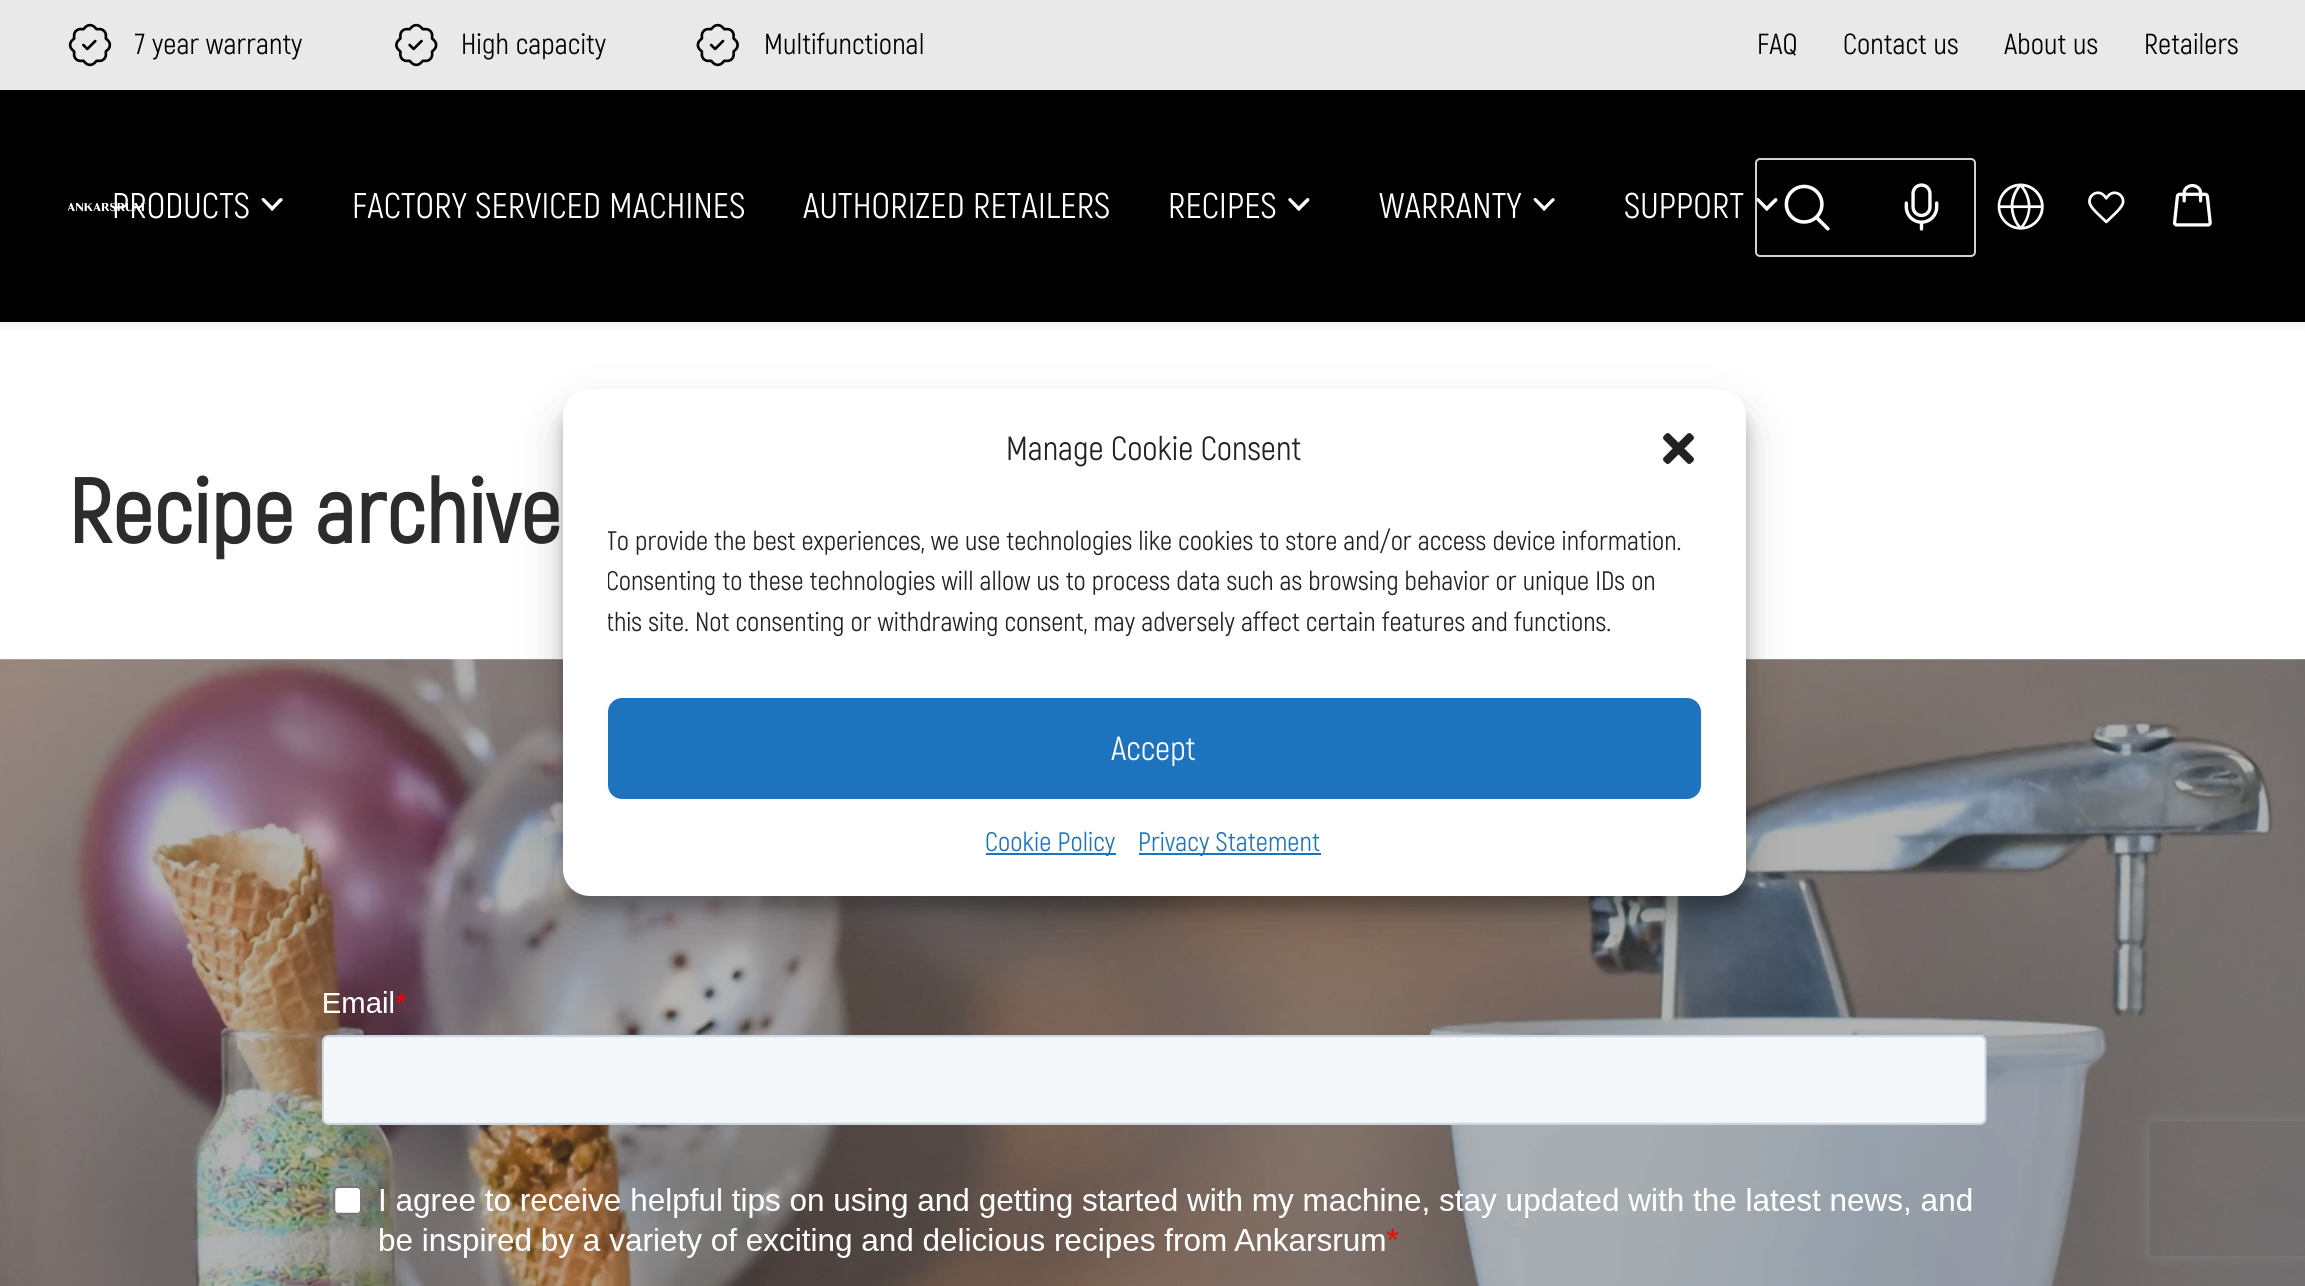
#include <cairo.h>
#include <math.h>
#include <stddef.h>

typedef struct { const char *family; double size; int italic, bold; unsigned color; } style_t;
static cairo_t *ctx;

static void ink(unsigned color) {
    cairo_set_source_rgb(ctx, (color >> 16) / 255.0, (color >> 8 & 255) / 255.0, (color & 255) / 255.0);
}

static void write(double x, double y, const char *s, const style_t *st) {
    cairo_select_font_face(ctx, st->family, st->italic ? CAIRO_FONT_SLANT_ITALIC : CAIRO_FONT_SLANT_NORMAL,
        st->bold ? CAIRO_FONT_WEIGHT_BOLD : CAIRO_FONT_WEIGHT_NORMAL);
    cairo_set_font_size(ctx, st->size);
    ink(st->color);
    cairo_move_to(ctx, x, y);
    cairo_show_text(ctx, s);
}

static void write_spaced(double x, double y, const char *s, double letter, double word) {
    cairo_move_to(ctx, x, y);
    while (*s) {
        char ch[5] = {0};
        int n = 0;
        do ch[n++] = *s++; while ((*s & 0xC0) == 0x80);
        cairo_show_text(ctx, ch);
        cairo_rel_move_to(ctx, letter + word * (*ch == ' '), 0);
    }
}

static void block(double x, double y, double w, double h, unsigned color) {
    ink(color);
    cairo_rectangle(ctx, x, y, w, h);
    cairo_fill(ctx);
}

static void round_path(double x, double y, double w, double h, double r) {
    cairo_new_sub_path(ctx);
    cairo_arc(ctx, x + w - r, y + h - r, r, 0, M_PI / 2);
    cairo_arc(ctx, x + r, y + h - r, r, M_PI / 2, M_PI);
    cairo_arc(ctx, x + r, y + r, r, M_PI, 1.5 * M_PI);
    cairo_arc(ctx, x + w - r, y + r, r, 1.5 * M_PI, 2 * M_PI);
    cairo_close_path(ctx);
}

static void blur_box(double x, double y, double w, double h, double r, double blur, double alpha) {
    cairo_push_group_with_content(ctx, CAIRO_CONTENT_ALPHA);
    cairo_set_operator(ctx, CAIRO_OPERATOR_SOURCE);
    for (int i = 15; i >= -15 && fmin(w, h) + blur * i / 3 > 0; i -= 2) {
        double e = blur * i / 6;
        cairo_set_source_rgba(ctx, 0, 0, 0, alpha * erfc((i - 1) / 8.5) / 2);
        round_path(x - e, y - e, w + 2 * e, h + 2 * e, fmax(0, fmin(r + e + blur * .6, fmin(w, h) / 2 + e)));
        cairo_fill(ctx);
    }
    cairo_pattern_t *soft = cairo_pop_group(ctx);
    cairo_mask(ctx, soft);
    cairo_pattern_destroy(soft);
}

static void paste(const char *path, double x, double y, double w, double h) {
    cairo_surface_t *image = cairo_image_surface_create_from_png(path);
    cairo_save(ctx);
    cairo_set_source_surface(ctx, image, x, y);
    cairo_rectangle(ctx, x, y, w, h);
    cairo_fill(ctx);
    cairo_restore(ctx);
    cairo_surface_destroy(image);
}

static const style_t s1 = {"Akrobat", 33.75, 0, 0, 0x222222};
static const style_t s2 = {"Akrobat", 27, 0, 0, 0x222222};
static const style_t s3 = {"Akrobat", 33.75, 0, 0, 0xffffff};

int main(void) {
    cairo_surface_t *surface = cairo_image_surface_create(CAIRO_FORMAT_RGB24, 2305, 1286);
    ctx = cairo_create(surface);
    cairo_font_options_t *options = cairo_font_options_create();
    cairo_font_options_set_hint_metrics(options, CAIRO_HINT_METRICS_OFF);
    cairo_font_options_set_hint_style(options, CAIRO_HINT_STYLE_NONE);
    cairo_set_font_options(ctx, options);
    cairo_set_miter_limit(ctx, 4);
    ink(0xffffff);
    cairo_paint(ctx);
    ink(0x000000);
    blur_box(0, 95, 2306, 231, 0, 4.5, 0.07);
    block(0, 0, 2305, 90, 0xe9e9e9);
    paste("pic1.png", 68, 23, 44, 44);
    cairo_select_font_face(ctx, "Akrobat", CAIRO_FONT_SLANT_NORMAL, CAIRO_FONT_WEIGHT_NORMAL);
    cairo_set_font_size(ctx, 29.25);
    ink(0x000000);
    write_spaced(135, 54, "7 year warranty", 0.1, 0);
    paste("pic2.png", 395, 23, 43, 44);
    write_spaced(461, 54, "High capacity", 0.1, 0);
    paste("pic3.png", 696, 23, 43, 44);
    write_spaced(764, 54, "Multifunctional", 0.1, 0);
    write_spaced(1757, 54, "FAQ", 0.1, 0);
    write_spaced(1843, 54, "Contact us", 0.1, 0);
    write_spaced(2004, 54, "About us", 0.1, 0);
    write_spaced(2144, 54, "Retailers", 0.1, 0);
    block(0, 90, 2305, 232, 0x000000);
    paste("pic4.png", 68, 203, 78, 9);
    cairo_set_font_size(ctx, 36);
    ink(0xffffff);
    write_spaced(112, 218, "PRODUCTS", 0.2, 0);
    cairo_new_path(ctx);
    cairo_move_to(ctx, 264.5, 198.5);
    cairo_line_to(ctx, 274.5, 208.5);
    cairo_line_to(ctx, 272, 211);
    cairo_line_to(ctx, 262, 200.5);
    cairo_curve_to(ctx, 260.5, 199, 263, 197, 264.5, 198.5);
    cairo_close_path(ctx);
    cairo_fill(ctx);
    cairo_new_path(ctx);
    cairo_move_to(ctx, 270, 208.5);
    cairo_line_to(ctx, 279.5, 198.5);
    cairo_curve_to(ctx, 280.5, 198, 281.5, 198, 282, 198.5);
    cairo_curve_to(ctx, 283, 199.5, 283, 200.5, 282, 201);
    cairo_line_to(ctx, 272, 211);
    cairo_close_path(ctx);
    cairo_fill(ctx);
    write_spaced(352, 218, "FACTORY SERVICED MACHINES", 0.2, 0);
    write_spaced(803, 218, "AUTHORIZED RETAILERS", 0.2, 0);
    write_spaced(1168, 218, "RECIPES", 0.2, 0);
    cairo_new_path(ctx);
    cairo_move_to(ctx, 1291, 198.5);
    cairo_line_to(ctx, 1301, 208.5);
    cairo_line_to(ctx, 1298.5, 211);
    cairo_line_to(ctx, 1288.5, 200.5);
    cairo_curve_to(ctx, 1287.5, 199, 1290, 197, 1291, 198.5);
    cairo_close_path(ctx);
    cairo_fill(ctx);
    cairo_new_path(ctx);
    cairo_move_to(ctx, 1296.5, 208.5);
    cairo_line_to(ctx, 1306.5, 198.5);
    cairo_curve_to(ctx, 1307, 198, 1308.5, 198, 1309, 198.5);
    cairo_curve_to(ctx, 1309.5, 199.5, 1309.5, 200.5, 1309, 201);
    cairo_line_to(ctx, 1299, 211);
    cairo_close_path(ctx);
    cairo_fill(ctx);
    write_spaced(1379, 218, "WARRANTY", 0.2, 0);
    cairo_new_path(ctx);
    cairo_move_to(ctx, 1536.5, 198.5);
    cairo_line_to(ctx, 1546.5, 208.5);
    cairo_line_to(ctx, 1544, 211);
    cairo_line_to(ctx, 1534, 200.5);
    cairo_curve_to(ctx, 1532.5, 199, 1535, 197, 1536.5, 198.5);
    cairo_close_path(ctx);
    cairo_fill(ctx);
    cairo_new_path(ctx);
    cairo_move_to(ctx, 1542, 208.5);
    cairo_line_to(ctx, 1552, 198.5);
    cairo_curve_to(ctx, 1552.5, 198, 1553.5, 198, 1554, 198.5);
    cairo_curve_to(ctx, 1555, 199.5, 1555, 200.5, 1554, 201);
    cairo_line_to(ctx, 1544, 211);
    cairo_close_path(ctx);
    cairo_fill(ctx);
    write_spaced(1624, 218, "SUPPORT", 0.2, 0);
    cairo_new_path(ctx);
    cairo_move_to(ctx, 1759, 198.5);
    cairo_line_to(ctx, 1769, 208.5);
    cairo_line_to(ctx, 1766.5, 211);
    cairo_line_to(ctx, 1756.5, 200.5);
    cairo_curve_to(ctx, 1755.5, 199, 1757.5, 197, 1759, 198.5);
    cairo_close_path(ctx);
    cairo_fill(ctx);
    cairo_new_path(ctx);
    cairo_move_to(ctx, 1764.5, 208.5);
    cairo_line_to(ctx, 1774.5, 198.5);
    cairo_curve_to(ctx, 1775, 198, 1776, 198, 1777, 198.5);
    cairo_curve_to(ctx, 1777.5, 199.5, 1777.5, 200.5, 1777, 201);
    cairo_line_to(ctx, 1767, 211);
    cairo_close_path(ctx);
    cairo_fill(ctx);
    round_path(1756, 159, 219, 97, 4);
    ink(0xd1d1d6);
    cairo_stroke(ctx);
    paste("pic5.png", 1784, 184, 46, 47);
    paste("pic6.png", 1904, 183, 35, 48);
    paste("pic7.png", 1997, 183, 47, 47);
    paste("pic8.png", 2088, 191, 37, 33);
    paste("pic9.png", 2172, 183, 40, 44);
    cairo_select_font_face(ctx, "Akrobat", CAIRO_FONT_SLANT_NORMAL, CAIRO_FONT_WEIGHT_BOLD);
    cairo_set_font_size(ctx, 91.25);
    ink(0x2c2c2e);
    write_spaced(68, 543, "Recipe archive", 0.5, 0);
    paste("pic10.png", 0, 659, 2305, 627);
    paste("pic11.png", 0, 659, 2305, 1);
    paste("pic12.png", 321, 991, 1666, 267);
    ink(0x000000);
    blur_box(563, 403, 1183, 506, 27, 7, 0.23);
    blur_box(563, 412, 1183, 506, 27, 22.5, 0.19);
    ink(0xffffff);
    round_path(563, 389, 1183, 507, 27);
    cairo_fill(ctx);
    write(1006, 460, "Manage Cookie Consent", &s1);
    paste("pic13.png", 1663, 433, 31, 31);
    cairo_save(ctx);
    cairo_rectangle(ctx, 608, 520, 1093, 133);
    cairo_clip(ctx);
    write(606, 550, "To provide the best experiences, we use technologies like cookies to store and/or access device information.", &s2);
    write(606, 590, "Consenting to these technologies will allow us to process data such as browsing behavior or unique IDs on", &s2);
    write(606, 631, "this site. Not consenting or withdrawing consent, may adversely affect certain features and functions.", &s2);
    cairo_restore(ctx);
    ink(0x1e73be);
    round_path(609, 699, 1091, 99, 13);
    cairo_fill_preserve(ctx);
    cairo_stroke(ctx);
    write(1111, 760, "Accept", &s3);
    block(986, 853, 130, 2, 0x1e73be);
    cairo_set_font_size(ctx, 27);
    write_spaced(985, 851, "Cookie Policy", 0.1, 0);
    block(1139, 853, 182, 2, 0x1e73be);
    write_spaced(1138, 851, "Privacy Statement", 0.1, 0);
    cairo_save(ctx);
    cairo_set_fill_rule(ctx, CAIRO_FILL_RULE_EVEN_ODD);
    cairo_new_path(ctx);
    cairo_move_to(ctx, 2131, 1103);
    cairo_line_to(ctx, 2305, 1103);
    cairo_line_to(ctx, 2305, 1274);
    cairo_line_to(ctx, 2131, 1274);
    cairo_close_path(ctx);
    cairo_move_to(ctx, 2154, 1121);
    cairo_line_to(ctx, 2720, 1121);
    cairo_curve_to(ctx, 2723, 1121, 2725, 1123, 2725, 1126);
    cairo_line_to(ctx, 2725, 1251);
    cairo_curve_to(ctx, 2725, 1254, 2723, 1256, 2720, 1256);
    cairo_line_to(ctx, 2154, 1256);
    cairo_curve_to(ctx, 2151, 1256, 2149, 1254, 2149, 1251);
    cairo_line_to(ctx, 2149, 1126);
    cairo_curve_to(ctx, 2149, 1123, 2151, 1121, 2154, 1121);
    cairo_close_path(ctx);
    cairo_clip(ctx);
    ink(0x808080);
    blur_box(2149, 1121, 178, 135, 5, 5.5, 1);
    cairo_restore(ctx);
    cairo_surface_write_to_png(surface, "screenshot.png");
    cairo_font_options_destroy(options);
    cairo_destroy(ctx);
    cairo_surface_destroy(surface);
    return 0;
}
